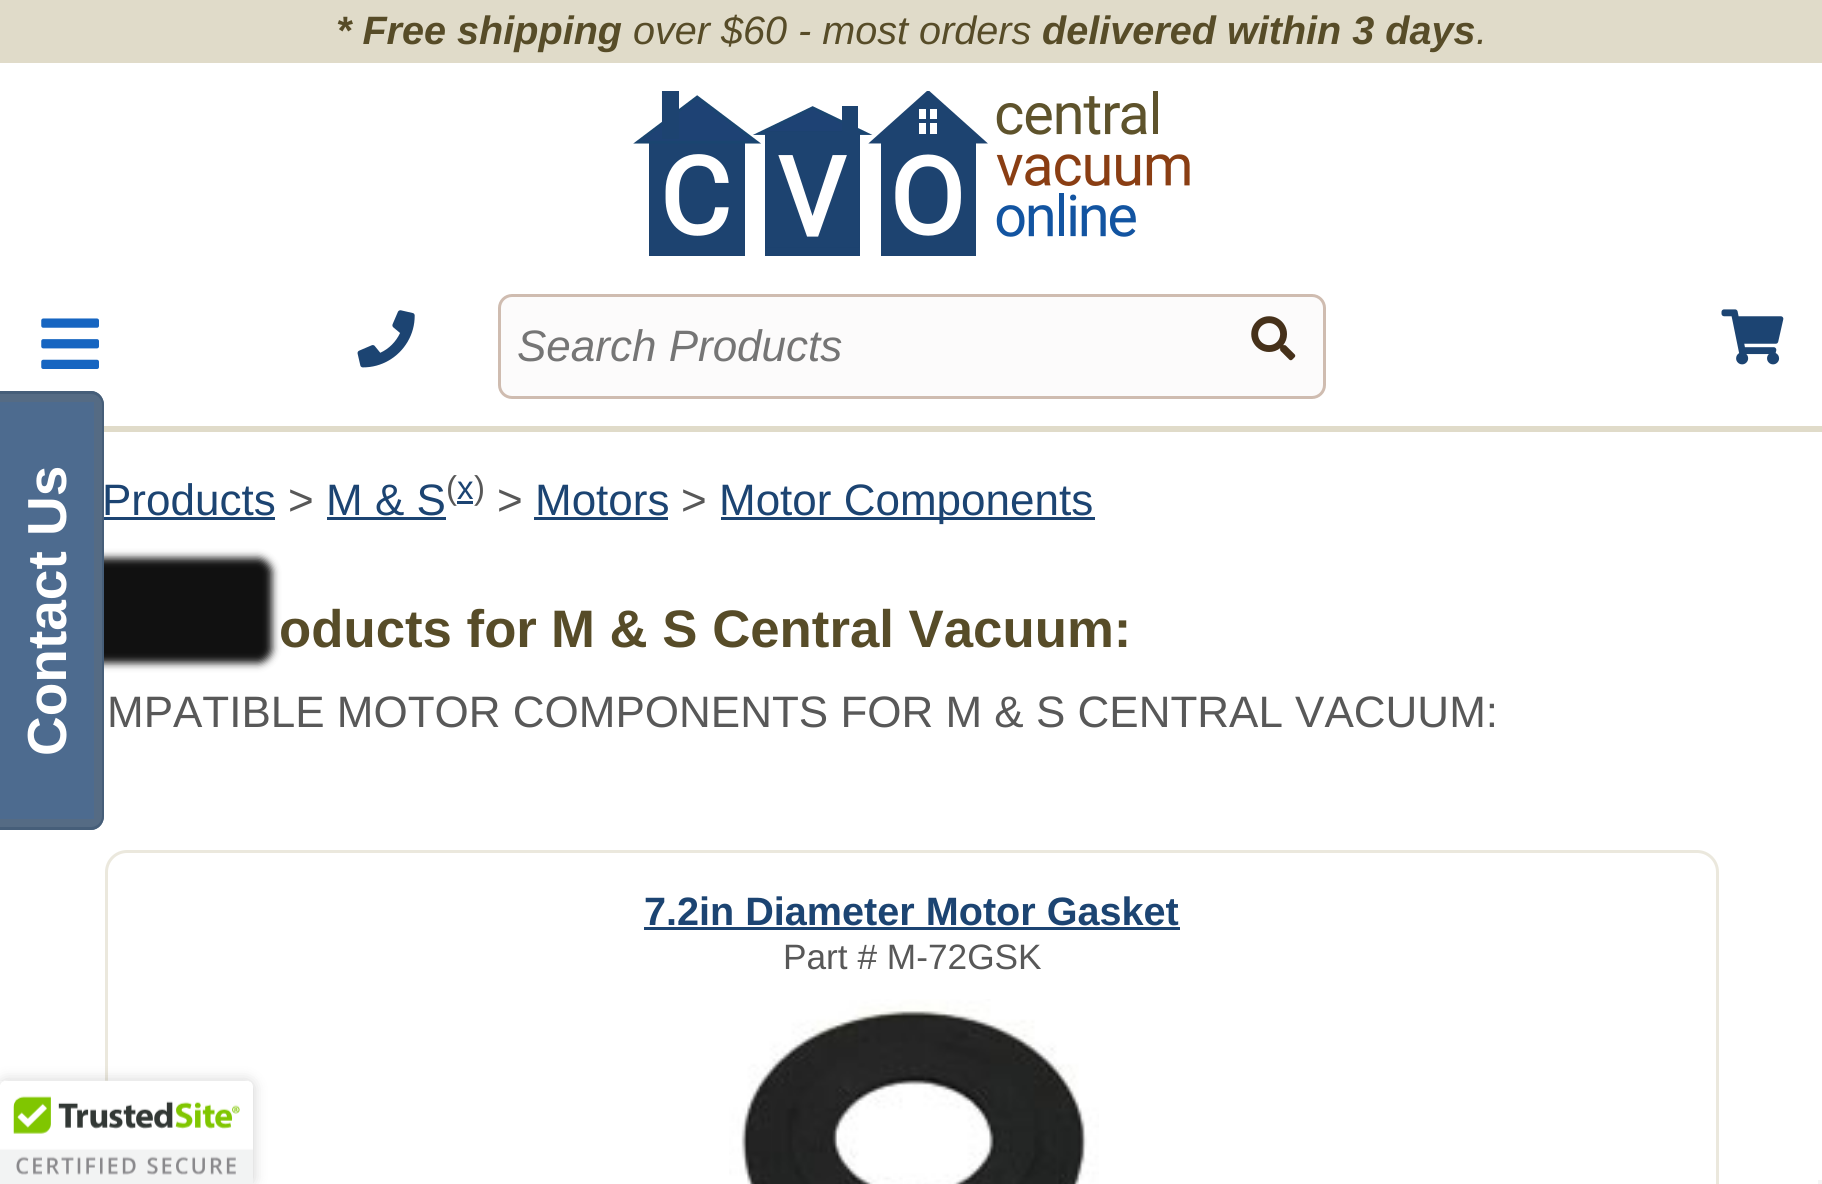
#include <cairo.h>
#include <math.h>
#include <stddef.h>

typedef struct { const char *family; double size; int italic, bold; unsigned color; } style_t;
static cairo_t *ctx;

static void ink(unsigned color) {
    cairo_set_source_rgb(ctx, (color >> 16) / 255.0, (color >> 8 & 255) / 255.0, (color & 255) / 255.0);
}

static void write(double x, double y, const char *s, const style_t *st) {
    cairo_select_font_face(ctx, st->family, st->italic ? CAIRO_FONT_SLANT_ITALIC : CAIRO_FONT_SLANT_NORMAL,
        st->bold ? CAIRO_FONT_WEIGHT_BOLD : CAIRO_FONT_WEIGHT_NORMAL);
    cairo_set_font_size(ctx, st->size);
    ink(st->color);
    cairo_move_to(ctx, x, y);
    cairo_show_text(ctx, s);
}

static void block(double x, double y, double w, double h, unsigned color) {
    ink(color);
    cairo_rectangle(ctx, x, y, w, h);
    cairo_fill(ctx);
}

static void round_path(double x, double y, double w, double h, double r) {
    cairo_new_sub_path(ctx);
    cairo_arc(ctx, x + w - r, y + h - r, r, 0, M_PI / 2);
    cairo_arc(ctx, x + r, y + h - r, r, M_PI / 2, M_PI);
    cairo_arc(ctx, x + r, y + r, r, M_PI, 1.5 * M_PI);
    cairo_arc(ctx, x + w - r, y + r, r, 1.5 * M_PI, 2 * M_PI);
    cairo_close_path(ctx);
}

static void blur_box(double x, double y, double w, double h, double r, double blur, double alpha) {
    cairo_push_group_with_content(ctx, CAIRO_CONTENT_ALPHA);
    cairo_set_operator(ctx, CAIRO_OPERATOR_SOURCE);
    for (int i = 15; i >= -15 && fmin(w, h) + blur * i / 3 > 0; i -= 2) {
        double e = blur * i / 6;
        cairo_set_source_rgba(ctx, 0, 0, 0, alpha * erfc((i - 1) / 8.5) / 2);
        round_path(x - e, y - e, w + 2 * e, h + 2 * e, fmax(0, fmin(r + e + blur * .6, fmin(w, h) / 2 + e)));
        cairo_fill(ctx);
    }
    cairo_pattern_t *soft = cairo_pop_group(ctx);
    cairo_mask(ctx, soft);
    cairo_pattern_destroy(soft);
}

static void paste(const char *path, double x, double y, double w, double h) {
    cairo_surface_t *image = cairo_image_surface_create_from_png(path);
    cairo_save(ctx);
    cairo_set_source_surface(ctx, image, x, y);
    cairo_rectangle(ctx, x, y, w, h);
    cairo_fill(ctx);
    cairo_restore(ctx);
    cairo_surface_destroy(image);
}

static const style_t s1 = {"Liberation Sans", 39.6, 1, 1, 0x574c28};
static const style_t s2 = {"Liberation Sans", 39.6, 1, 0, 0x574c28};
static const style_t s3 = {"Liberation Sans", 44, 1, 0, 0x757575};
static const style_t s4 = {"Liberation Sans", 55, 0, 1, 0xffffff};
static const style_t s5 = {"Liberation Sans", 44, 0, 0, 0x1c4472};
static const style_t s6 = {"Liberation Sans", 44, 0, 0, 0x585858};
static const style_t s7 = {"Liberation Sans", 33, 0, 0, 0x585858};
static const style_t s8 = {"Liberation Sans", 33, 0, 0, 0x1c4472};
static const style_t s9 = {"Liberation Sans", 52.75, 0, 1, 0x574c28};
static const style_t s10 = {"Liberation Sans", 39.6, 0, 1, 0x1c4472};
static const style_t s11 = {"Liberation Sans", 35.25, 0, 0, 0x585858};

int main(void) {
    cairo_surface_t *surface = cairo_image_surface_create(CAIRO_FORMAT_RGB24, 1822, 1184);
    ctx = cairo_create(surface);
    cairo_font_options_t *options = cairo_font_options_create();
    cairo_font_options_set_hint_metrics(options, CAIRO_HINT_METRICS_OFF);
    cairo_font_options_set_hint_style(options, CAIRO_HINT_STYLE_NONE);
    cairo_set_font_options(ctx, options);
    cairo_set_miter_limit(ctx, 4);
    ink(0xffffff);
    cairo_paint(ctx);
    block(0, 0, 1822, 63, 0xe0dbc9);
    write(336, 44, "* Free shipping", &s1);
    write(633, 44, "over $60 - most orders", &s2);
    write(1042, 44, "delivered within 3 days", &s1);
    write(1476, 44, ".", &s2);
    paste("pic1.png", 633, 91, 557, 165);
    paste("pic2.png", 41, 318, 58, 51);
    paste("pic3.png", 357, 310, 58, 58);
    ink(0xfcfbfb);
    round_path(499.5, 295.5, 825, 102, 12.5);
    cairo_fill_preserve(ctx);
    ink(0xcfbcb0);
    cairo_set_line_width(ctx, 3);
    cairo_stroke(ctx);
    write(517, 361, "Search Products", &s3);
    paste("pic4.png", 1251, 316, 45, 45);
    paste("pic5.png", 1721, 309, 63, 56);
    block(104, 426, 1718, 6, 0xe0dbc9);
    ink(0x111111);
    blur_box(-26, 558, 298, 105, 14, 4, 1);
    ink(0x556b84);
    cairo_new_path(ctx);
    cairo_move_to(ctx, 0, 830);
    cairo_line_to(ctx, 0, 391);
    cairo_line_to(ctx, 91, 391);
    cairo_curve_to(ctx, 98, 391, 104, 397, 104, 405);
    cairo_line_to(ctx, 104, 816);
    cairo_curve_to(ctx, 104, 824, 98, 830, 91, 830);
    cairo_close_path(ctx);
    cairo_fill(ctx);
    ink(0x465e79);
    cairo_set_fill_rule(ctx, CAIRO_FILL_RULE_EVEN_ODD);
    cairo_new_path(ctx);
    cairo_move_to(ctx, 0, 830);
    cairo_line_to(ctx, 0, 391);
    cairo_line_to(ctx, 91, 391);
    cairo_curve_to(ctx, 98, 391, 104, 397, 104, 405);
    cairo_line_to(ctx, 104, 816);
    cairo_curve_to(ctx, 104, 824, 98, 830, 91, 830);
    cairo_close_path(ctx);
    cairo_move_to(ctx, 0, 827);
    cairo_line_to(ctx, 0, 394);
    cairo_line_to(ctx, 91, 394);
    cairo_curve_to(ctx, 97, 394, 102, 399, 102, 405);
    cairo_line_to(ctx, 102, 816);
    cairo_curve_to(ctx, 102, 822, 97, 827, 91, 827);
    cairo_close_path(ctx);
    cairo_fill(ctx);
    block(0, 402, 94, 417, 0x4d6b8f);
    cairo_save(ctx);
    cairo_translate(ctx, 66, 756);
    cairo_rotate(ctx, -90 * M_PI / 180);
    write(0, 0, "Contact Us", &s4);
    cairo_restore(ctx);
    write(102, 515, "Products", &s5);
    block(104, 517, 171, 3, 0x1c4472);
    write(288, 515, ">", &s6);
    write(326, 515, "M & S", &s5);
    block(327, 517, 119, 3, 0x1c4472);
    write(446, 499, "(", &s7);
    block(457, 501, 16, 3, 0x1c4472);
    write(457, 499, "x", &s8);
    write(474, 499, ")", &s7);
    write(497, 515, ">", &s6);
    write(535, 515, "Motors", &s5);
    block(534, 517, 134, 3, 0x1c4472);
    write(681, 515, ">", &s6);
    block(721, 517, 374, 3, 0x1c4472);
    write(719, 515, "Motor Components", &s5);
    write(279, 647, "oducts for", &s9);
    write(551, 647, "M & S Central Vacuum:", &s9);
    write(107, 727, "MPATIBLE MOTOR COMPONENTS FOR M & S CENTRAL VACUUM:", &s6);
    round_path(106.5, 851.5, 1611, 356, 20.5);
    ink(0xebe8dd);
    cairo_stroke(ctx);
    write(644, 925, "7.2in Diameter Motor Gasket", &s10);
    block(644, 927, 536, 3, 0x1c4472);
    write(783, 969, "Part # M-72GSK", &s11);
    paste("pic6.png", 729, 999, 370, 185);
    ink(0x000000);
    blur_box(0, 1081, 253, 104, 6, 7, 0.2);
    ink(0xffffff);
    cairo_new_path(ctx);
    cairo_move_to(ctx, 0, 1081);
    cairo_line_to(ctx, 247, 1081);
    cairo_curve_to(ctx, 250.5, 1081, 253, 1083.5, 253, 1087);
    cairo_line_to(ctx, 253, 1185);
    cairo_line_to(ctx, 0, 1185);
    cairo_close_path(ctx);
    cairo_fill(ctx);
    paste("pic7.png", 0, 1080, 253, 104);
    block(1818, 1180, 4, 4, 0xf5f5f5);
    cairo_surface_write_to_png(surface, "screenshot.png");
    cairo_font_options_destroy(options);
    cairo_destroy(ctx);
    cairo_surface_destroy(surface);
    return 0;
}
